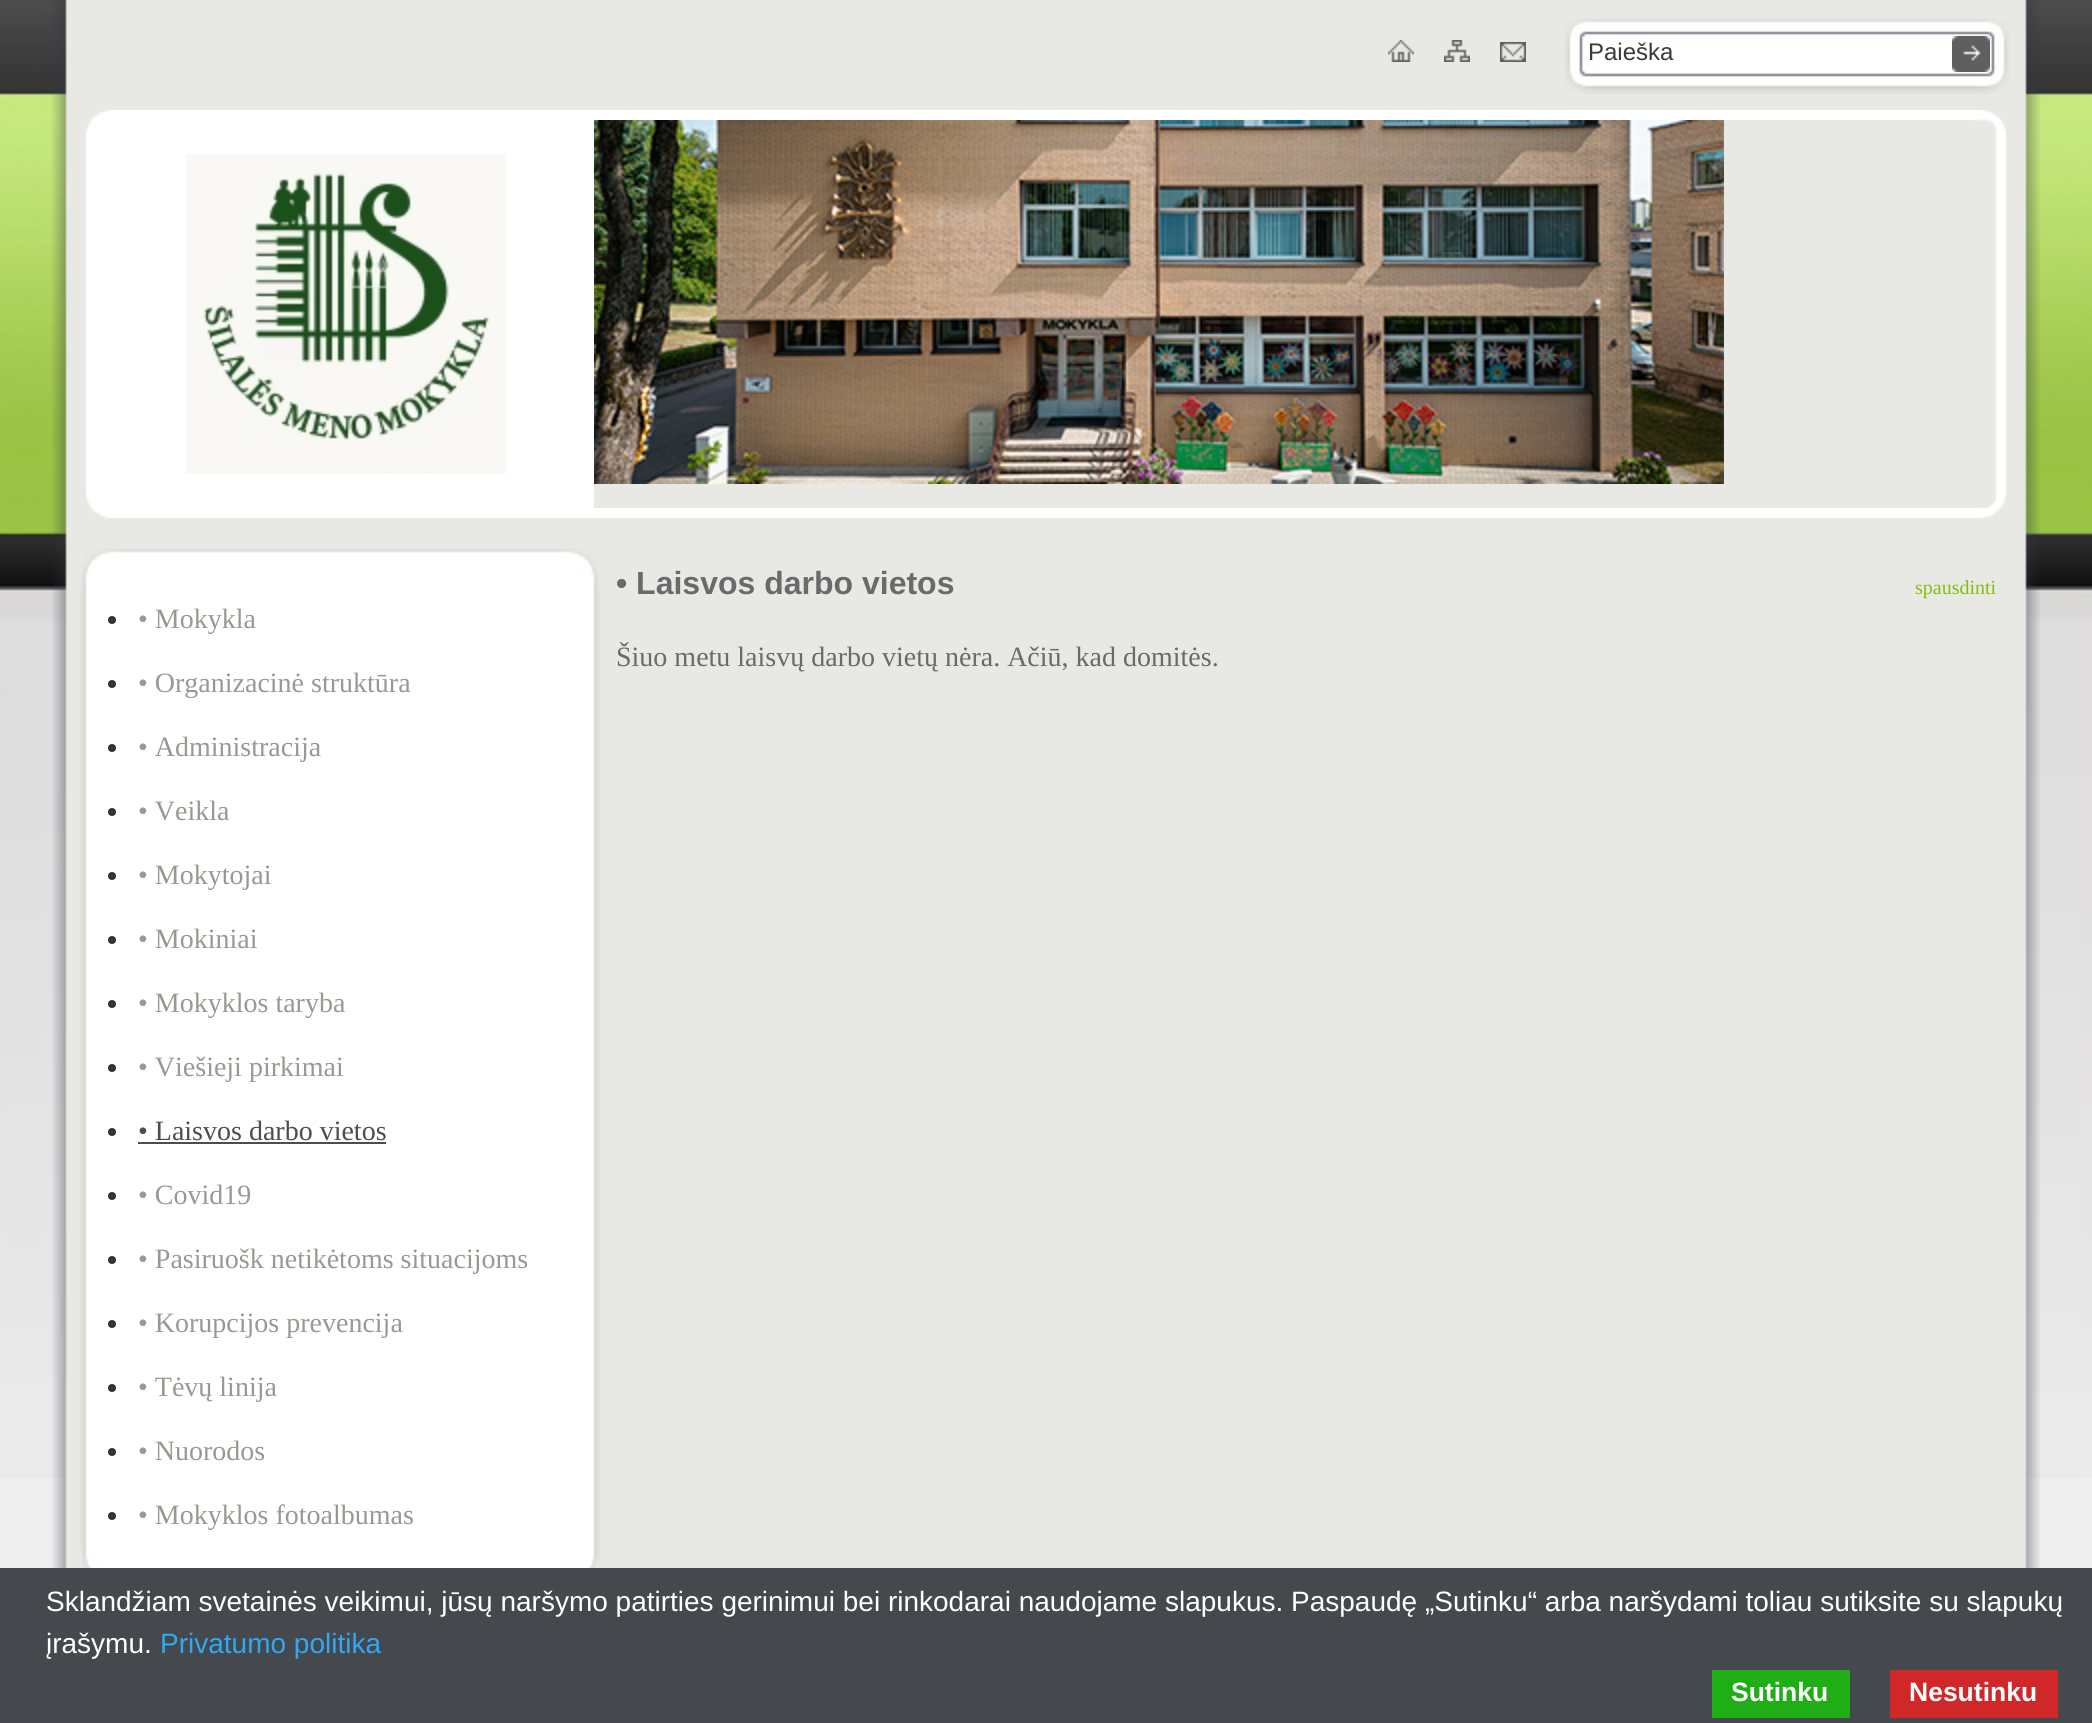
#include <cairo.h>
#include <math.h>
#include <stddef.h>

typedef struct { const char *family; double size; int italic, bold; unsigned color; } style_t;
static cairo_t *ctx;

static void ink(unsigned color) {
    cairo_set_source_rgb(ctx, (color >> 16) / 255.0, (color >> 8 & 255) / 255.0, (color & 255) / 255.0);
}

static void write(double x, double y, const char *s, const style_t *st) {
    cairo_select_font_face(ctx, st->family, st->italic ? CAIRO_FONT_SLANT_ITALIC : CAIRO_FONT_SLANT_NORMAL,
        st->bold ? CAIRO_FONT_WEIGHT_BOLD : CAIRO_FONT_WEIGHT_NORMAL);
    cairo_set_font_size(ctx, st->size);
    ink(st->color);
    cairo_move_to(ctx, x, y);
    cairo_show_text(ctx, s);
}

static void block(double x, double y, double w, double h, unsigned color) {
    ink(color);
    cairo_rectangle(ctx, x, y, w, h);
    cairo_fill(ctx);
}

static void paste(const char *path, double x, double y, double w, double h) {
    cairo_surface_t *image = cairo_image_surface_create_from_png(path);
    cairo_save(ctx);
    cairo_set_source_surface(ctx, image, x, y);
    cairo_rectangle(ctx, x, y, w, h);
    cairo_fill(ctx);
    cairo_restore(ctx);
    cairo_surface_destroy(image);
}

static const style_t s1 = {"Liberation Sans", 24, 0, 0, 0x3a3a3a};
static const style_t s2 = {"Liberation Serif", 28, 0, 0, 0x999891};
static const style_t s3 = {"Liberation Serif", 28, 0, 0, 0x4e4d4a};
static const style_t s4 = {"Liberation Sans", 32, 0, 1, 0x6a6a6a};
static const style_t s5 = {"Liberation Serif", 20, 0, 0, 0x82bf0b};
static const style_t s6 = {"Liberation Serif", 28, 0, 0, 0x6a6a6a};
static const style_t s7 = {"Liberation Sans", 28, 0, 0, 0xffffff};
static const style_t s8 = {"Liberation Sans", 28, 0, 0, 0x31a8f0};
static const style_t s9 = {"Liberation Sans", 26.5, 0, 1, 0xffffff};

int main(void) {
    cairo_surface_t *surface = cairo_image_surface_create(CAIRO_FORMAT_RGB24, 2092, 1723);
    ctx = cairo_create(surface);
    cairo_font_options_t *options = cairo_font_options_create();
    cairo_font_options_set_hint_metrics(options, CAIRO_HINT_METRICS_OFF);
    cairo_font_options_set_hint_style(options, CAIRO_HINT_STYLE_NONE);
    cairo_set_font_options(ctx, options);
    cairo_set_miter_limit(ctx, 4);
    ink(0xefefef);
    cairo_paint(ctx);
    paste("pic1.png", 0, 0, 2092, 1478);
    paste("pic2.png", 52, 0, 1988, 1568);
    paste("pic3.png", 1388, 40, 26, 22);
    paste("pic4.png", 1444, 40, 26, 22);
    paste("pic5.png", 1500, 42, 26, 20);
    paste("pic6.png", 1564, 18, 446, 76);
    write(1588, 60, "Paieška", &s1);
    paste("pic7.png", 1952, 36, 38, 36);
    paste("pic8.png", 86, 110, 508, 408);
    paste("pic9.png", 594, 110, 1383, 10);
    paste("pic9.png", 594, 508, 1383, 10);
    paste("pic10.png", 1974, 110, 32, 408);
    paste("pic11.png", 186, 154, 320, 320);
    paste("pic12.png", 594, 120, 1130, 364);
    paste("pic13.png", 81, 548, 518, 40);
    paste("pic14.png", 80, 588, 520, 960);
    ink(0x323232);
    cairo_arc(ctx, 112, 620, 4, 0, 2 * M_PI);
    cairo_fill(ctx);
    write(138, 628, "• Mokykla", &s2);
    ink(0x323232);
    cairo_new_path(ctx);
    cairo_arc(ctx, 112, 684, 4, 0, 2 * M_PI);
    cairo_fill(ctx);
    write(138, 692, "• Organizacinė struktūra", &s2);
    ink(0x323232);
    cairo_new_path(ctx);
    cairo_arc(ctx, 112, 748, 4, 0, 2 * M_PI);
    cairo_fill(ctx);
    write(138, 756, "• Administracija", &s2);
    ink(0x323232);
    cairo_new_path(ctx);
    cairo_arc(ctx, 112, 812, 4, 0, 2 * M_PI);
    cairo_fill(ctx);
    write(138, 820, "• Veikla", &s2);
    ink(0x323232);
    cairo_new_path(ctx);
    cairo_arc(ctx, 112, 876, 4, 0, 2 * M_PI);
    cairo_fill(ctx);
    write(138, 884, "• Mokytojai", &s2);
    ink(0x323232);
    cairo_new_path(ctx);
    cairo_arc(ctx, 112, 940, 4, 0, 2 * M_PI);
    cairo_fill(ctx);
    write(138, 948, "• Mokiniai", &s2);
    ink(0x323232);
    cairo_new_path(ctx);
    cairo_arc(ctx, 112, 1004, 4, 0, 2 * M_PI);
    cairo_fill(ctx);
    write(138, 1012, "• Mokyklos taryba", &s2);
    ink(0x323232);
    cairo_new_path(ctx);
    cairo_arc(ctx, 112, 1068, 4, 0, 2 * M_PI);
    cairo_fill(ctx);
    write(138, 1076, "• Viešieji pirkimai", &s2);
    ink(0x323232);
    cairo_new_path(ctx);
    cairo_arc(ctx, 112, 1132, 4, 0, 2 * M_PI);
    cairo_fill(ctx);
    write(138, 1140, "• Laisvos darbo vietos", &s3);
    block(138, 1142, 248, 2, 0x4e4d4a);
    ink(0x323232);
    cairo_new_path(ctx);
    cairo_arc(ctx, 112, 1196, 4, 0, 2 * M_PI);
    cairo_fill(ctx);
    write(138, 1204, "• Covid19", &s2);
    ink(0x323232);
    cairo_new_path(ctx);
    cairo_arc(ctx, 112, 1260, 4, 0, 2 * M_PI);
    cairo_fill(ctx);
    write(138, 1268, "• Pasiruošk netikėtoms situacijoms", &s2);
    ink(0x323232);
    cairo_new_path(ctx);
    cairo_arc(ctx, 112, 1324, 4, 0, 2 * M_PI);
    cairo_fill(ctx);
    write(138, 1332, "• Korupcijos prevencija", &s2);
    ink(0x323232);
    cairo_new_path(ctx);
    cairo_arc(ctx, 112, 1388, 4, 0, 2 * M_PI);
    cairo_fill(ctx);
    write(138, 1396, "• Tėvų linija", &s2);
    ink(0x323232);
    cairo_new_path(ctx);
    cairo_arc(ctx, 112, 1452, 4, 0, 2 * M_PI);
    cairo_fill(ctx);
    write(138, 1460, "• Nuorodos", &s2);
    ink(0x323232);
    cairo_new_path(ctx);
    cairo_arc(ctx, 112, 1516, 4, 0, 2 * M_PI);
    cairo_fill(ctx);
    write(138, 1524, "• Mokyklos fotoalbumas", &s2);
    paste("pic15.png", 81, 1548, 519, 20);
    write(616, 594, "• Laisvos darbo vietos", &s4);
    write(1915, 594, "spausdinti", &s5);
    write(616, 666, "Šiuo metu laisvų darbo vietų nėra. Ačiū, kad domitės.", &s6);
    block(0, 1568, 2092, 155, 0x45484d);
    write(46, 1611, "Sklandžiam svetainės veikimui, jūsų naršymo patirties gerinimui bei rinkodarai naudojame slapukus. Paspaudę „Sutinku“ arba naršydami toliau sutiksite su slapukų", &s7);
    write(46, 1653, "įrašymu.", &s7);
    write(160, 1653, "Privatumo politika", &s8);
    block(1712, 1670, 138, 48, 0x1fae16);
    write(1731, 1701, "Sutinku", &s9);
    block(1890, 1670, 168, 48, 0xd02828);
    write(1909, 1701, "Nesutinku", &s9);
    cairo_surface_write_to_png(surface, "screenshot.png");
    cairo_font_options_destroy(options);
    cairo_destroy(ctx);
    cairo_surface_destroy(surface);
    return 0;
}
